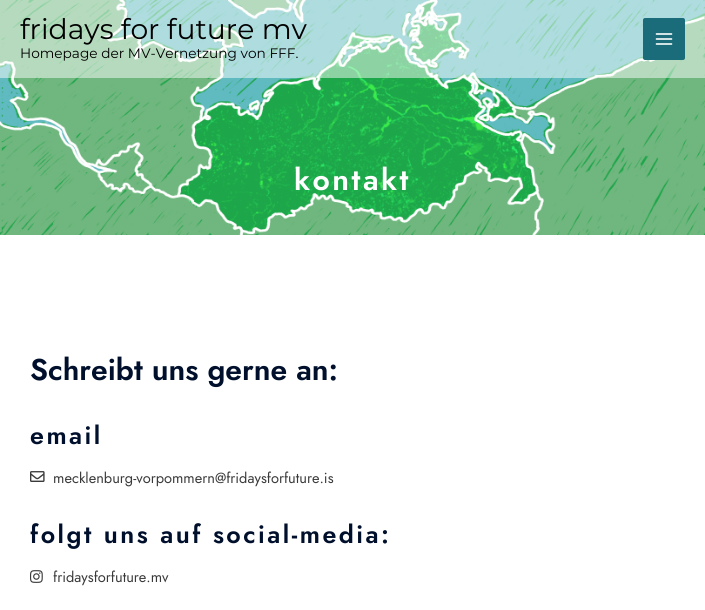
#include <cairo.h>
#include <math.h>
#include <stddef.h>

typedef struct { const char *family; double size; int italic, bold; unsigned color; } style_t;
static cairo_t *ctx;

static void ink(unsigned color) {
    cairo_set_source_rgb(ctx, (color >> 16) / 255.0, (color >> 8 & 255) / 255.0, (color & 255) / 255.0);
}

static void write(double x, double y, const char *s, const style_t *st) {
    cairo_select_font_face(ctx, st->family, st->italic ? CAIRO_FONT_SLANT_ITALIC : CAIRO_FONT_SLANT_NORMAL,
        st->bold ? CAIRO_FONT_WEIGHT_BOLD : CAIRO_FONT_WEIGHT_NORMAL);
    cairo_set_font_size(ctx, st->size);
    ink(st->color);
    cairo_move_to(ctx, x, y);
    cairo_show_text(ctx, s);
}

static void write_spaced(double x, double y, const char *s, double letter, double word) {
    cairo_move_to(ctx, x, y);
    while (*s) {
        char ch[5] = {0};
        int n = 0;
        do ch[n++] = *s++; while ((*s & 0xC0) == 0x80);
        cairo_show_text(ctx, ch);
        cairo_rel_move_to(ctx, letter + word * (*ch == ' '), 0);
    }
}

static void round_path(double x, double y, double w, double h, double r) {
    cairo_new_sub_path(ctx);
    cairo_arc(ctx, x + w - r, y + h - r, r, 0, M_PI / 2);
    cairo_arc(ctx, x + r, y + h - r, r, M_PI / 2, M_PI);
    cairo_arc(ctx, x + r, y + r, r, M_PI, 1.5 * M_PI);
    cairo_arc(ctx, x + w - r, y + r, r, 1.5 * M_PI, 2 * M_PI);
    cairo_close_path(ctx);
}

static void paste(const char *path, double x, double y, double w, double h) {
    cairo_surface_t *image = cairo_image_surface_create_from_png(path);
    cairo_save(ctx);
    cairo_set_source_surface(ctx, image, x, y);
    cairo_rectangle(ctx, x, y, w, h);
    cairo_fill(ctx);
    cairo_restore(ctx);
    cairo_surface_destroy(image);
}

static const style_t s1 = {"Montserrat", 28.25, 0, 0, 0x000000};
static const style_t s2 = {"Montserrat", 13.7, 0, 0, 0x000000};
static const style_t s3 = {"Jost SemiBold", 30, 0, 0, 0x000f2b};
static const style_t s4 = {"Jost", 14.6, 0, 0, 0x3a3a3a};

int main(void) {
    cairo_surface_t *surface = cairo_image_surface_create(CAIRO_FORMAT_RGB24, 705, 610);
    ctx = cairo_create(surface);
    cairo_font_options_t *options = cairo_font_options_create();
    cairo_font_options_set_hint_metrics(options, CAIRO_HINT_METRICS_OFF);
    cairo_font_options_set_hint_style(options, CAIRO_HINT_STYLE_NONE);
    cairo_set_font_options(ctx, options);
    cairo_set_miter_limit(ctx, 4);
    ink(0xffffff);
    cairo_paint(ctx);
    paste("pic2.png", 0, 0, 705, 235);
    cairo_set_source_rgba(ctx, 1, 1, 1, 0.49);
    cairo_rectangle(ctx, 0, 0, 705, 78);
    cairo_fill(ctx);
    write(20, 39, "fridays for future mv", &s1);
    write(20, 58, "Homepage der MV-Vernetzung von FFF.", &s2);
    ink(0x1a6c7a);
    round_path(643, 18, 42, 42, 2);
    cairo_fill(ctx);
    paste("pic1.png", 655, 33, 18, 12);
    cairo_select_font_face(ctx, "Jost SemiBold", CAIRO_FONT_SLANT_NORMAL, CAIRO_FONT_WEIGHT_NORMAL);
    cairo_set_font_size(ctx, 30);
    ink(0xffffff);
    write_spaced(294, 190, "kontakt", 2.5, 0);
    write(30, 380, "Schreibt uns gerne an:", &s3);
    cairo_set_font_size(ctx, 25);
    write_spaced(30, 444, "email", 2.5, 0);
    paste("pic3.png", 30, 471, 15, 11);
    write(53, 483, "mecklenburg-vorpommern@fridaysforfuture.is", &s4);
    cairo_select_font_face(ctx, "Jost SemiBold", CAIRO_FONT_SLANT_NORMAL, CAIRO_FONT_WEIGHT_NORMAL);
    cairo_set_font_size(ctx, 25);
    ink(0x000f2b);
    write_spaced(30, 543, "folgt uns auf social-media:", 2.5, 0);
    paste("pic4.png", 30, 570, 13, 13);
    write(53, 582, "fridaysforfuture.mv", &s4);
    cairo_surface_write_to_png(surface, "screenshot.png");
    cairo_font_options_destroy(options);
    cairo_destroy(ctx);
    cairo_surface_destroy(surface);
    return 0;
}
